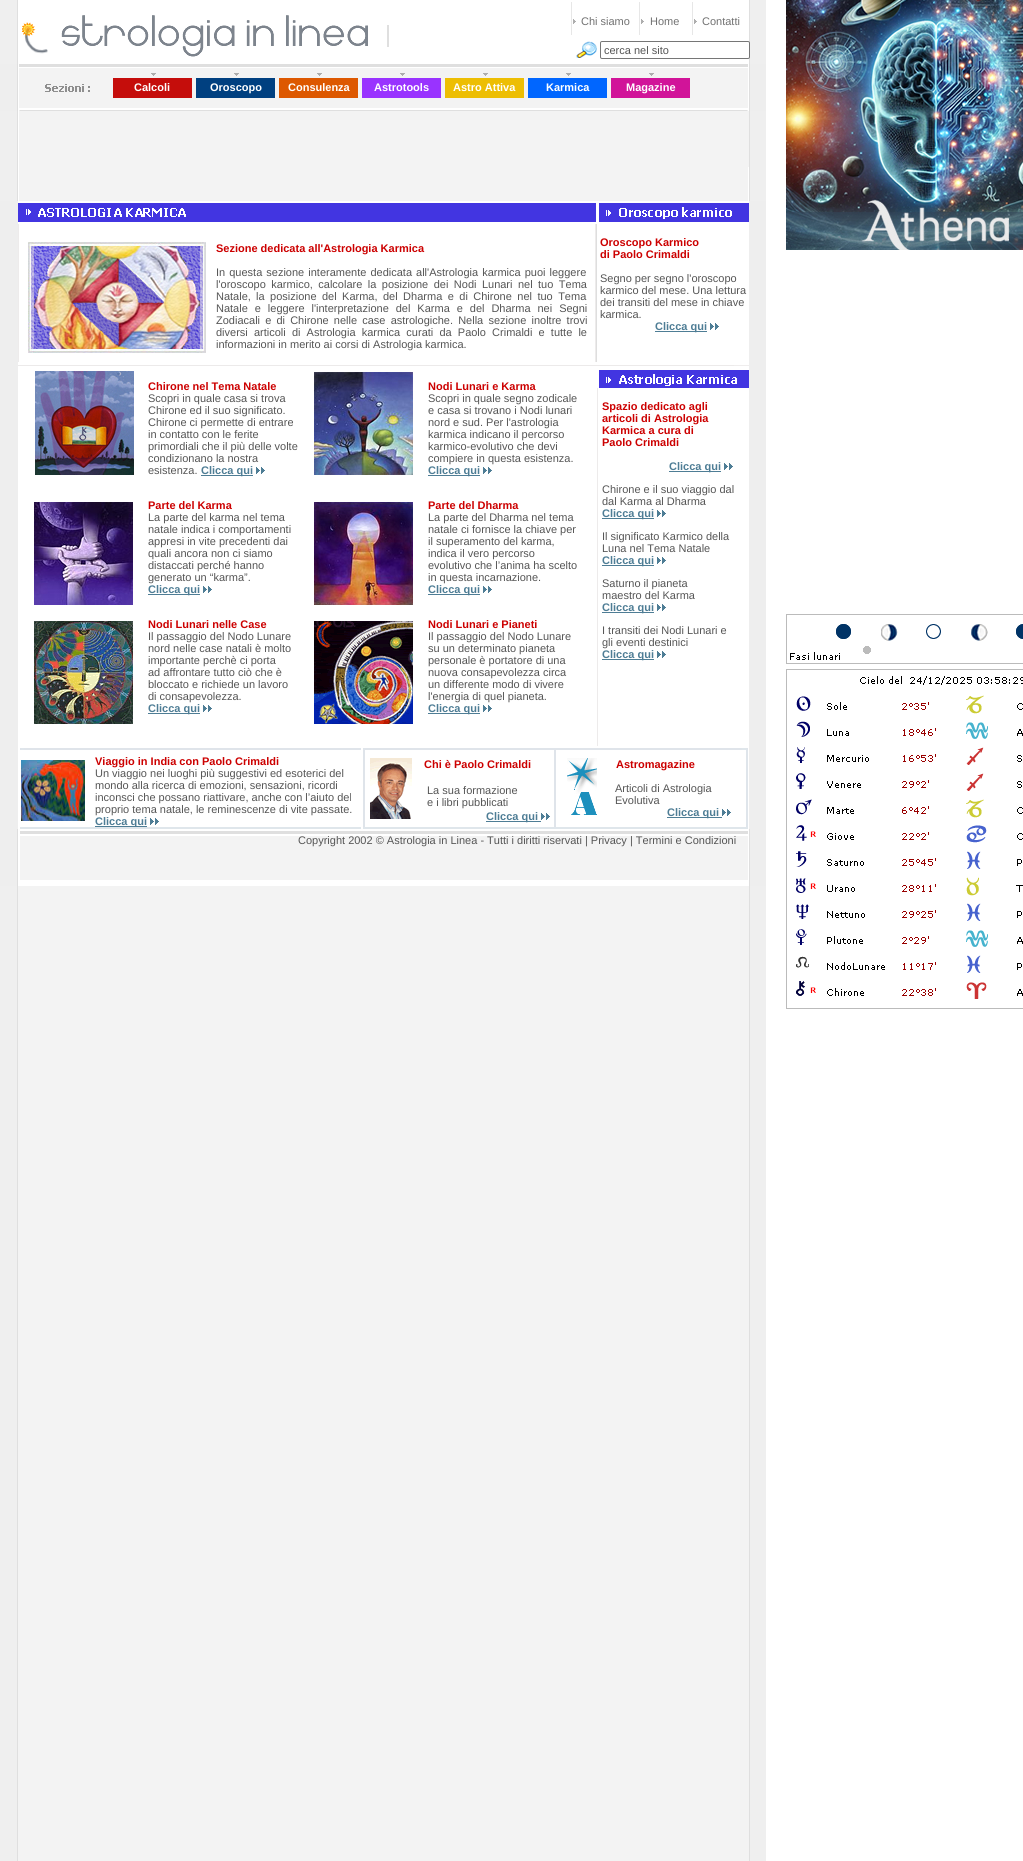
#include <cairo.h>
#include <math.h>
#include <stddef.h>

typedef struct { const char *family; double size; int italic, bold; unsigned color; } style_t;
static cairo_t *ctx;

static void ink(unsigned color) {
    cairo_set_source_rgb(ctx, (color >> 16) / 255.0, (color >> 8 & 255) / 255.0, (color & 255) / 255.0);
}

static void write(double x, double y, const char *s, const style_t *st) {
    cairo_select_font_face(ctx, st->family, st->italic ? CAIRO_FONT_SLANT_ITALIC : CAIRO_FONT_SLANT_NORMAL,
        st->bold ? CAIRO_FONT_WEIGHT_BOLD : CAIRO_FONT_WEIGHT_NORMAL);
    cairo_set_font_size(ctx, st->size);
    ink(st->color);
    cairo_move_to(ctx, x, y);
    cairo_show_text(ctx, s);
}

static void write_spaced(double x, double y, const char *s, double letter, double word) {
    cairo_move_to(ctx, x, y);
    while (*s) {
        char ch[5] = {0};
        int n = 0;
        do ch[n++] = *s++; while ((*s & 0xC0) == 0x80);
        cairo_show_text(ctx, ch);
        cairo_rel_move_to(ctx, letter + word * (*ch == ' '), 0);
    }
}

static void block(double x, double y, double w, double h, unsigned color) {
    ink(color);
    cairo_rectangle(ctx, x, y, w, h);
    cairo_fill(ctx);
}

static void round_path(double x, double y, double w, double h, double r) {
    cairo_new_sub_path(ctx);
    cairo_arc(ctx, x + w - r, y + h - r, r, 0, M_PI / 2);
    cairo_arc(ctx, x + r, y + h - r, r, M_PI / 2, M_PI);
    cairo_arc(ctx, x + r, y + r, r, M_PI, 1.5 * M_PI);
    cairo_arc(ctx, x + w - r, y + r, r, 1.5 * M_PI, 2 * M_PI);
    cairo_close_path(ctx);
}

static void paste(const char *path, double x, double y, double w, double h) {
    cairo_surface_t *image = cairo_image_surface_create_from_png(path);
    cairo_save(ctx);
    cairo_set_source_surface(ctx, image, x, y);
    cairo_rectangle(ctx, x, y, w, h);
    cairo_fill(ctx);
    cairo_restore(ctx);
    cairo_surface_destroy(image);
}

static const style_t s1 = {"Liberation Sans", 11, 0, 0, 0x717171};
static const style_t s2 = {"Liberation Sans", 11, 0, 0, 0x555555};
static const style_t s3 = {"Liberation Sans", 11, 0, 1, 0xffffff};
static const style_t s4 = {"Liberation Sans", 11, 0, 1, 0xcc0000};
static const style_t s5 = {"Liberation Sans", 11, 0, 1, 0x4e7d95};

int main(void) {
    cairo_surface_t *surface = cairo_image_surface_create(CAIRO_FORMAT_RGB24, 1023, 1861);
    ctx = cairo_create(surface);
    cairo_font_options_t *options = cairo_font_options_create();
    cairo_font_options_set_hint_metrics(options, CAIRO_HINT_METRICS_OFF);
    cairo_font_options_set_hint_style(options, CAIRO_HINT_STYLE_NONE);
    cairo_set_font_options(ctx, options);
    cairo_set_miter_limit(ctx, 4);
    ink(0xffffff);
    cairo_paint(ctx);
    paste("pic1.png", 0, 0, 766, 64);
    paste("pic2.png", 22, 22, 26, 32);
    paste("pic3.png", 61, 15, 307, 42);
    block(387, 25, 2, 22, 0xdfdfdf);
    write(581, 25, "Chi siamo", &s1);
    write(650, 25, "Home", &s1);
    write(702, 25, "Contatti", &s1);
    paste("pic4.png", 576, 41, 21, 17);
    ink(0xffffff);
    round_path(600.5, 41.5, 149, 17, 1.5);
    cairo_fill_preserve(ctx);
    ink(0x767676);
    cairo_set_line_width(ctx, 1);
    cairo_stroke(ctx);
    write(604, 54, "cerca nel sito", &s2);
    paste("pic5.png", 0, 64, 766, 47);
    paste("pic6.png", 45, 84, 45, 8);
    paste("pic7.png", 113, 73, 79, 25);
    write(134, 91, "Calcoli", &s3);
    paste("pic8.png", 196, 73, 79, 25);
    write(210, 91, "Oroscopo", &s3);
    paste("pic9.png", 279, 73, 79, 25);
    write(288, 91, "Consulenza", &s3);
    paste("pic10.png", 362, 73, 79, 25);
    write(374, 91, "Astrotools", &s3);
    paste("pic11.png", 445, 73, 79, 25);
    write(453, 91, "Astro Attiva", &s3);
    paste("pic12.png", 528, 73, 79, 25);
    write(546, 91, "Karmica", &s3);
    paste("pic13.png", 611, 73, 79, 25);
    write(626, 91, "Magazine", &s3);
    paste("pic14.png", 0, 111, 766, 90);
    block(0, 201, 18, 628, 0xeeeeee);
    paste("pic15.png", 18, 203, 578, 19);
    paste("pic16.png", 599, 203, 150, 19);
    paste("pic17.png", 18, 224, 579, 138);
    paste("pic18.png", 28, 242, 178, 111);
    write(216, 252, "Sezione dedicata all'Astrologia Karmica", &s4);
    cairo_select_font_face(ctx, "Liberation Sans", CAIRO_FONT_SLANT_NORMAL, CAIRO_FONT_WEIGHT_NORMAL);
    ink(0x555555);
    write_spaced(216, 276, "In questa sezione interamente dedicata all'Astrologia karmica puoi leggere", 0, 1);
    write_spaced(216, 288, "l'oroscopo karmico, calcolare la posizione dei Nodi Lunari nel tuo Tema", 0, 2.4);
    write(216, 300, "Natale,", &s2);
    write_spaced(256, 300, "la posizione del Karma, del Dharma e di Chirone nel tuo Tema", 0, 2.4);
    write_spaced(216, 312, "Natale e leggere l'interpretazione del Karma e del Dharma nei Segni", 0, 3.9);
    write_spaced(216, 324, "Zodiacali e di Chirone nelle case astrologiche. Nella sezione inoltre trovi", 0, 2.1);
    write_spaced(216, 336, "diversi articoli di Astrologia karmica curati da Paolo Crimaldi e tutte le", 0, 3.1);
    write(216, 348, "informazioni in merito ai corsi di Astrologia karmica.", &s2);
    write(600, 246, "Oroscopo Karmico", &s4);
    write(600, 258, "di Paolo Crimaldi", &s4);
    write(600, 282, "Segno per segno l'oroscopo", &s2);
    write(600, 294, "karmico del mese. Una lettura", &s2);
    write(600, 306, "dei transiti del mese in chiave", &s2);
    write(600, 318, "karmica.", &s2);
    block(655, 331, 52, 1, 0x4e7d95);
    write(655, 330, "Clicca qui", &s5);
    paste("pic19.png", 710, 323, 9, 7);
    paste("pic20.png", 18, 362, 731, 6);
    paste("pic21.png", 599, 370, 150, 18);
    paste("pic22.png", 35, 371, 99, 104);
    write(148, 390, "Chirone nel Tema Natale", &s4);
    write(148, 402, "Scopri in quale casa si trova", &s2);
    write(148, 414, "Chirone ed il suo significato.", &s2);
    write(148, 426, "Chirone ci permette di entrare", &s2);
    write(148, 438, "in contatto con le ferite", &s2);
    write(148, 450, "primordiali che il più delle volte", &s2);
    write(148, 462, "condizionano la nostra", &s2);
    write(148, 474, "esistenza.", &s2);
    block(201, 475, 52, 1, 0x4e7d95);
    write(201, 474, "Clicca qui", &s5);
    paste("pic19.png", 256, 467, 9, 7);
    paste("pic23.png", 314, 372, 99, 103);
    write(428, 390, "Nodi Lunari e Karma", &s4);
    write(428, 402, "Scopri in quale segno zodicale", &s2);
    write(428, 414, "e casa si trovano i Nodi lunari", &s2);
    write(428, 426, "nord e sud. Per l'astrologia", &s2);
    write(428, 438, "karmica indicano il percorso", &s2);
    write(428, 450, "karmico-evolutivo che devi", &s2);
    write(428, 462, "compiere in questa esistenza.", &s2);
    block(428, 475, 52, 1, 0x4e7d95);
    write(428, 474, "Clicca qui", &s5);
    paste("pic19.png", 483, 467, 9, 7);
    paste("pic24.png", 34, 502, 99, 103);
    write(148, 509, "Parte del Karma", &s4);
    write(148, 521, "La parte del karma nel tema", &s2);
    write(148, 533, "natale indica i comportamenti", &s2);
    write(148, 545, "appresi in vite precedenti dai", &s2);
    write(148, 557, "quali ancora non ci siamo", &s2);
    write(148, 569, "distaccati perché hanno", &s2);
    write(148, 581, "generato un “karma”.", &s2);
    block(148, 594, 52, 1, 0x4e7d95);
    write(148, 593, "Clicca qui", &s5);
    paste("pic19.png", 203, 586, 9, 7);
    paste("pic25.png", 314, 502, 99, 103);
    write(428, 509, "Parte del Dharma", &s4);
    write(428, 521, "La parte del Dharma nel tema", &s2);
    write(428, 533, "natale ci fornisce la chiave per", &s2);
    write(428, 545, "il superamento del karma,", &s2);
    write(428, 557, "indica il vero percorso", &s2);
    write(428, 569, "evolutivo che l’anima ha scelto", &s2);
    write(428, 581, "in questa incarnazione.", &s2);
    block(428, 594, 52, 1, 0x4e7d95);
    write(428, 593, "Clicca qui", &s5);
    paste("pic19.png", 483, 586, 9, 7);
    paste("pic26.png", 34, 621, 99, 103);
    write(148, 628, "Nodi Lunari nelle Case", &s4);
    write(148, 640, "Il passaggio del Nodo Lunare", &s2);
    write(148, 652, "nord nelle case natali è molto", &s2);
    write(148, 664, "importante perchè ci porta", &s2);
    write(148, 676, "ad affrontare tutto ciò che è", &s2);
    write(148, 688, "bloccato e richiede un lavoro", &s2);
    write(148, 700, "di consapevolezza.", &s2);
    block(148, 713, 52, 1, 0x4e7d95);
    write(148, 712, "Clicca qui", &s5);
    paste("pic19.png", 203, 705, 9, 7);
    paste("pic27.png", 314, 621, 99, 103);
    write(428, 628, "Nodi Lunari e Pianeti", &s4);
    write(428, 640, "Il passaggio del Nodo Lunare", &s2);
    write(428, 652, "su un determinato pianeta", &s2);
    write(428, 664, "personale è portatore di una", &s2);
    write(428, 676, "nuova consapevolezza circa", &s2);
    write(428, 688, "un differente modo di vivere", &s2);
    write(428, 700, "l'energia di quel pianeta.", &s2);
    block(428, 713, 52, 1, 0x4e7d95);
    write(428, 712, "Clicca qui", &s5);
    paste("pic19.png", 483, 705, 9, 7);
    block(597, 388, 1, 358, 0xedebeb);
    write(602, 410, "Spazio dedicato agli", &s4);
    write(602, 422, "articoli di Astrologia", &s4);
    write(602, 434, "Karmica a cura di", &s4);
    write(602, 446, "Paolo Crimaldi", &s4);
    block(669, 471, 52, 1, 0x4e7d95);
    write(669, 470, "Clicca qui", &s5);
    paste("pic19.png", 724, 463, 9, 7);
    write(602, 493, "Chirone e il suo viaggio dal", &s2);
    write(602, 505, "dal Karma al Dharma", &s2);
    block(602, 518, 52, 1, 0x4e7d95);
    write(602, 517, "Clicca qui", &s5);
    paste("pic19.png", 657, 510, 9, 7);
    write(602, 540, "Il significato Karmico della", &s2);
    write(602, 552, "Luna nel Tema Natale", &s2);
    block(602, 565, 52, 1, 0x4e7d95);
    write(602, 564, "Clicca qui", &s5);
    paste("pic19.png", 657, 557, 9, 7);
    write(602, 587, "Saturno il pianeta", &s2);
    write(602, 599, "maestro del Karma", &s2);
    block(602, 612, 52, 1, 0x4e7d95);
    write(602, 611, "Clicca qui", &s5);
    paste("pic19.png", 657, 604, 9, 7);
    write(602, 634, "I transiti dei Nodi Lunari e", &s2);
    write(602, 646, "gli eventi destinici", &s2);
    block(602, 659, 52, 1, 0x4e7d95);
    write(602, 658, "Clicca qui", &s5);
    paste("pic19.png", 657, 651, 9, 7);
    paste("pic28.png", 18, 746, 731, 4);
    paste("pic29.png", 18, 750, 731, 77);
    paste("pic30.png", 21, 760, 64, 61);
    write(95, 765, "Viaggio in India con Paolo Crimaldi", &s4);
    write(95, 777, "Un viaggio nei luoghi più suggestivi ed esoterici del", &s2);
    write(95, 789, "mondo alla ricerca di emozioni, sensazioni, ricordi", &s2);
    write(95, 801, "inconsci che possano riattivare, anche con l’aiuto del", &s2);
    write(95, 813, "proprio tema natale, le reminescenze di vite passate.", &s2);
    block(95, 826, 52, 1, 0x4e7d95);
    write(95, 825, "Clicca qui", &s5);
    paste("pic19.png", 150, 818, 9, 7);
    paste("pic31.png", 370, 758, 42, 61);
    write(424, 768, "Chi è Paolo Crimaldi", &s4);
    write(427, 794, "La sua formazione", &s2);
    write(427, 806, "e i libri pubblicati", &s2);
    block(486, 821, 55, 1, 0x4e7d95);
    write(486, 820, "Clicca qui", &s5);
    paste("pic19.png", 541, 813, 9, 7);
    paste("pic32.png", 567, 758, 30, 57);
    write(616, 768, "Astromagazine", &s4);
    write(615, 792, "Articoli di Astrologia", &s2);
    write(615, 804, "Evolutiva", &s2);
    block(667, 817, 55, 1, 0x4e7d95);
    write(667, 816, "Clicca qui", &s5);
    paste("pic19.png", 722, 809, 9, 7);
    paste("pic33.png", 18, 827, 731, 2);
    block(749, 201, 17, 628, 0xeeeeee);
    paste("pic34.png", 0, 829, 766, 5);
    paste("pic35.png", 0, 834, 766, 52);
    write(298, 844, "Copyright 2002 © Astrologia in Linea - Tutti i diritti riservati | Privacy | Termini e Condizioni", &s2);
    paste("pic36.png", 0, 886, 766, 975);
    paste("pic37.png", 786, 0, 237, 250);
    paste("pic38.png", 786, 614, 237, 50);
    paste("pic39.png", 786, 669, 237, 340);
    cairo_surface_write_to_png(surface, "screenshot.png");
    cairo_font_options_destroy(options);
    cairo_destroy(ctx);
    cairo_surface_destroy(surface);
    return 0;
}
